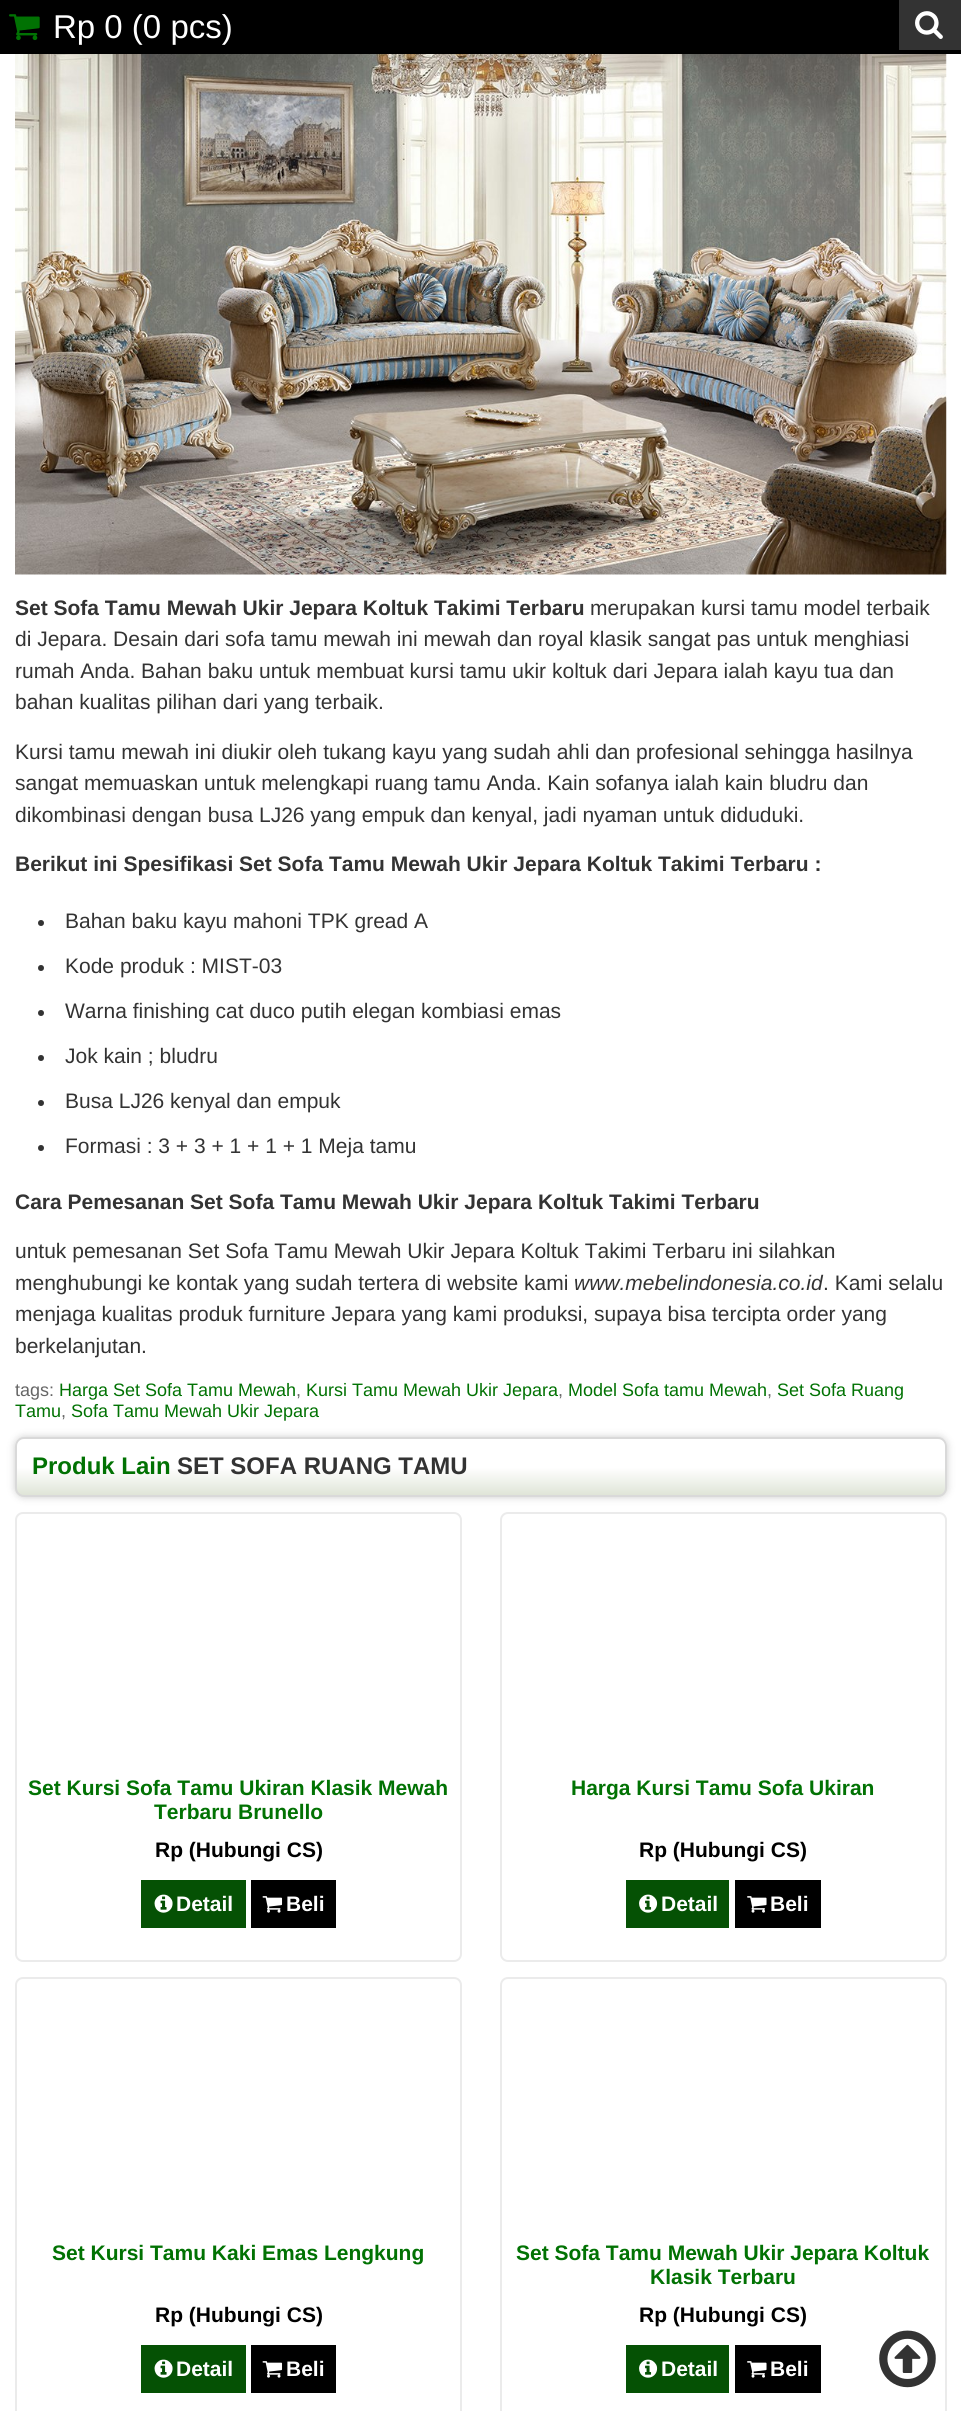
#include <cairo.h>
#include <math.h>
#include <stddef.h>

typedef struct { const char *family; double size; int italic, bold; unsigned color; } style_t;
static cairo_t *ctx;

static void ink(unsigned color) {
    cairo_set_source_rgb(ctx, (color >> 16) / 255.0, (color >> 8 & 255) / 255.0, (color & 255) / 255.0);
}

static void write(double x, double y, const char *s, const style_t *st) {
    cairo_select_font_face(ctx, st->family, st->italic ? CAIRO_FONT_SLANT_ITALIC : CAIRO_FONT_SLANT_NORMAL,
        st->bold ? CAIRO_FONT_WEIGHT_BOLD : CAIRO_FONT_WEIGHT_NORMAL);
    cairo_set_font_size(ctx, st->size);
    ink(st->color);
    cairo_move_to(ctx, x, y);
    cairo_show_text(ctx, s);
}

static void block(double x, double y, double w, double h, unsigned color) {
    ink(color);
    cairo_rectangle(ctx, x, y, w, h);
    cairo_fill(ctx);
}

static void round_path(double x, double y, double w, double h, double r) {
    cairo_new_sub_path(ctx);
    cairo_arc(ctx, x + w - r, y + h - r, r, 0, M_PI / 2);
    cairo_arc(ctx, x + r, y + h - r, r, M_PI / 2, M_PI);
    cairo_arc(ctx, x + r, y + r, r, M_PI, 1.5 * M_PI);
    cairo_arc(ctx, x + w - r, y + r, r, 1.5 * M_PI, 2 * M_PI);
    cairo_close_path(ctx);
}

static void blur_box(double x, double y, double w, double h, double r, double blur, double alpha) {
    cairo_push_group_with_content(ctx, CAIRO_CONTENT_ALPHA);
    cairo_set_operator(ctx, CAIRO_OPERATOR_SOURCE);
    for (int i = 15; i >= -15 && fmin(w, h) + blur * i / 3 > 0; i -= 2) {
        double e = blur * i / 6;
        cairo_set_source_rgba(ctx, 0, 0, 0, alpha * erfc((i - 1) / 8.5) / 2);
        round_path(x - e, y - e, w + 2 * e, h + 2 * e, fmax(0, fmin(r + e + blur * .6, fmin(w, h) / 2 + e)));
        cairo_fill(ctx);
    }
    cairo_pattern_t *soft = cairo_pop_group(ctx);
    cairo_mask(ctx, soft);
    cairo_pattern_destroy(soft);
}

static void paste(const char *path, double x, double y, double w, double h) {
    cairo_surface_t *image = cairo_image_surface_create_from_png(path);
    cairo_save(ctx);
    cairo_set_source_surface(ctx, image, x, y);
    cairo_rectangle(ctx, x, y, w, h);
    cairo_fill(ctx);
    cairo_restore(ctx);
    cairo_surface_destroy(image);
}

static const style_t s1 = {"Liberation Sans", 33, 0, 0, 0xffffff};
static const style_t s2 = {"Liberation Sans", 21, 0, 1, 0x333333};
static const style_t s3 = {"Liberation Sans", 21, 0, 0, 0x333333};
static const style_t s4 = {"Liberation Sans", 21, 1, 0, 0x333333};
static const style_t s5 = {"Liberation Sans", 18, 0, 0, 0x666666};
static const style_t s6 = {"Liberation Sans", 18, 0, 0, 0x017203};
static const style_t s7 = {"Liberation Sans", 24, 0, 1, 0x017203};
static const style_t s8 = {"Liberation Sans", 24, 0, 1, 0x333333};
static const style_t s9 = {"Liberation Sans", 21, 0, 1, 0x017203};
static const style_t s10 = {"Liberation Sans", 21, 0, 1, 0x000000};
static const style_t s11 = {"Liberation Sans", 21, 0, 1, 0xffffff};

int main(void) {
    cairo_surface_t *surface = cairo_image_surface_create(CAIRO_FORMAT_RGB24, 961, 2411);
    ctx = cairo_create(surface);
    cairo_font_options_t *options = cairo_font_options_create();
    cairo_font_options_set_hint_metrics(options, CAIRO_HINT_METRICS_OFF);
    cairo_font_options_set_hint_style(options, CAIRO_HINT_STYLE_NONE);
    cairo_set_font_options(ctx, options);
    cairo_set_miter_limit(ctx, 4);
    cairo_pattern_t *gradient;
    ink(0xffffff);
    cairo_paint(ctx);
    block(0, 0, 961, 54, 0x000000);
    paste("pic1.png", 9, 14, 31, 27);
    write(53, 38, "Rp 0 (0 pcs)", &s1);
    block(899, 0, 62, 50, 0x333333);
    paste("pic2.png", 915, 11, 28, 28);
    paste("pic3.png", 15, 54, 932, 521);
    write(15, 615, "Set Sofa Tamu Mewah Ukir Jepara Koltuk Takimi Terbaru", &s2);
    write(590, 615, "merupakan kursi tamu model terbaik", &s3);
    write(15, 646, "di Jepara. Desain dari sofa tamu mewah ini mewah dan royal klasik sangat pas untuk menghiasi", &s3);
    write(15, 678, "rumah Anda. Bahan baku untuk membuat kursi tamu ukir koltuk dari Jepara ialah kayu tua dan", &s3);
    write(15, 709, "bahan kualitas pilihan dari yang terbaik.", &s3);
    write(15, 759, "Kursi tamu mewah ini diukir oleh tukang kayu yang sudah ahli dan profesional sehingga hasilnya", &s3);
    write(15, 790, "sangat memuaskan untuk melengkapi ruang tamu Anda. Kain sofanya ialah kain bludru dan", &s3);
    write(15, 822, "dikombinasi dengan busa LJ26 yang empuk dan kenyal, jadi nyaman untuk diduduki.", &s3);
    write(15, 871, "Berikut ini Spesifikasi Set Sofa Tamu Mewah Ukir Jepara Koltuk Takimi Terbaru :", &s2);
    cairo_new_path(ctx);
    cairo_arc(ctx, 41, 923, 3, 0, 2 * M_PI);
    cairo_fill(ctx);
    write(65, 928, "Bahan baku kayu mahoni TPK gread A", &s3);
    cairo_new_path(ctx);
    cairo_arc(ctx, 41, 968, 3, 0, 2 * M_PI);
    cairo_fill(ctx);
    write(65, 973, "Kode produk : MIST-03", &s3);
    cairo_new_path(ctx);
    cairo_arc(ctx, 41, 1013, 3, 0, 2 * M_PI);
    cairo_fill(ctx);
    write(65, 1018, "Warna finishing cat duco putih elegan kombiasi emas", &s3);
    cairo_new_path(ctx);
    cairo_arc(ctx, 41, 1058, 3, 0, 2 * M_PI);
    cairo_fill(ctx);
    write(65, 1063, "Jok kain ; bludru", &s3);
    cairo_new_path(ctx);
    cairo_arc(ctx, 41, 1103, 3, 0, 2 * M_PI);
    cairo_fill(ctx);
    write(65, 1108, "Busa LJ26 kenyal dan empuk", &s3);
    cairo_new_path(ctx);
    cairo_arc(ctx, 41, 1148, 3, 0, 2 * M_PI);
    cairo_fill(ctx);
    write(65, 1153, "Formasi : 3 + 3 + 1 + 1 + 1 Meja tamu", &s3);
    write(15, 1209, "Cara Pemesanan Set Sofa Tamu Mewah Ukir Jepara Koltuk Takimi Terbaru", &s2);
    write(15, 1258, "untuk pemesanan Set Sofa Tamu Mewah Ukir Jepara Koltuk Takimi Terbaru ini silahkan", &s3);
    write(15, 1290, "menghubungi ke kontak yang sudah tertera di website kami", &s3);
    write(574, 1290, "www.mebelindonesia.co.id", &s4);
    write(823, 1290, ". Kami selalu", &s3);
    write(15, 1321, "menjaga kualitas produk furniture Jepara yang kami produksi, supaya bisa tercipta order yang", &s3);
    write(15, 1353, "berkelanjutan.", &s3);
    write(15, 1396, "tags:", &s5);
    write(59, 1396, "Harga Set Sofa Tamu Mewah", &s6);
    write(296, 1396, ",", &s5);
    write(306, 1396, "Kursi Tamu Mewah Ukir Jepara", &s6);
    write(558, 1396, ",", &s5);
    write(568, 1396, "Model Sofa tamu Mewah", &s6);
    write(767, 1396, ",", &s5);
    write(777, 1396, "Set Sofa Ruang", &s6);
    write(15, 1417, "Tamu", &s6);
    write(61, 1417, ",", &s5);
    write(71, 1417, "Sofa Tamu Mewah Ukir Jepara", &s6);
    ink(0x000000);
    blur_box(15, 1437, 932, 60, 9, 4, 0.2);
    cairo_save(ctx);
    round_path(15, 1437, 932, 60, 9);
    cairo_clip(ctx);
    gradient = cairo_pattern_create_linear(481, 1439, 481, 1496);
    cairo_pattern_add_color_stop_rgba(gradient, 0, 1, 1, 1, 1);
    cairo_pattern_add_color_stop_rgba(gradient, 0.5, 1, 1, 1, 1);
    cairo_pattern_add_color_stop_rgba(gradient, 1, 0.871, 0.894, 0.839, 1);
    cairo_set_source(ctx, gradient);
    cairo_pattern_destroy(gradient);
    cairo_rectangle(ctx, 15, 1439, 932, 57);
    cairo_fill(ctx);
    cairo_restore(ctx);
    round_path(16, 1438, 930, 58, 8);
    ink(0xd9d9d9);
    cairo_stroke(ctx);
    write(32, 1474, "Produk Lain", &s7);
    write(177, 1474, "SET SOFA RUANG TAMU", &s8);
    round_path(16, 1513, 445, 448, 7);
    ink(0xebebeb);
    cairo_stroke(ctx);
    write(28, 1795, "Set Kursi Sofa Tamu Ukiran Klasik Mewah", &s9);
    write(154, 1819, "Terbaru Brunello", &s9);
    write(155, 1857, "Rp (Hubungi CS)", &s10);
    block(141, 1880, 105, 48, 0x055104);
    paste("pic4.png", 154, 1894, 19, 19);
    write(176, 1911, "Detail", &s11);
    block(251, 1880, 85, 48, 0x000000);
    paste("pic5.png", 262, 1896, 21, 17);
    write(286, 1911, "Beli", &s11);
    round_path(501, 1513, 445, 448, 7);
    ink(0xebebeb);
    cairo_stroke(ctx);
    write(571, 1795, "Harga Kursi Tamu Sofa Ukiran", &s9);
    write(639, 1857, "Rp (Hubungi CS)", &s10);
    block(626, 1880, 103, 48, 0x055104);
    paste("pic6.png", 639, 1894, 19, 19);
    write(661, 1911, "Detail", &s11);
    block(735, 1880, 86, 48, 0x000000);
    paste("pic7.png", 747, 1896, 20, 17);
    write(770, 1911, "Beli", &s11);
    round_path(16, 1978, 445, 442, 7);
    ink(0xebebeb);
    cairo_stroke(ctx);
    write(52, 2260, "Set Kursi Tamu Kaki Emas Lengkung", &s9);
    write(155, 2322, "Rp (Hubungi CS)", &s10);
    block(141, 2345, 105, 48, 0x055104);
    paste("pic4.png", 154, 2359, 19, 19);
    write(176, 2376, "Detail", &s11);
    block(251, 2345, 85, 48, 0x000000);
    paste("pic5.png", 262, 2361, 21, 17);
    write(286, 2376, "Beli", &s11);
    round_path(501, 1978, 445, 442, 7);
    ink(0xebebeb);
    cairo_stroke(ctx);
    write(516, 2260, "Set Sofa Tamu Mewah Ukir Jepara Koltuk", &s9);
    write(650, 2284, "Klasik Terbaru", &s9);
    write(639, 2322, "Rp (Hubungi CS)", &s10);
    block(626, 2345, 103, 48, 0x055104);
    paste("pic6.png", 639, 2359, 19, 19);
    write(661, 2376, "Detail", &s11);
    block(735, 2345, 86, 48, 0x000000);
    paste("pic7.png", 747, 2361, 20, 17);
    write(770, 2376, "Beli", &s11);
    paste("pic8.png", 879, 2330, 57, 58);
    cairo_surface_write_to_png(surface, "screenshot.png");
    cairo_font_options_destroy(options);
    cairo_destroy(ctx);
    cairo_surface_destroy(surface);
    return 0;
}
